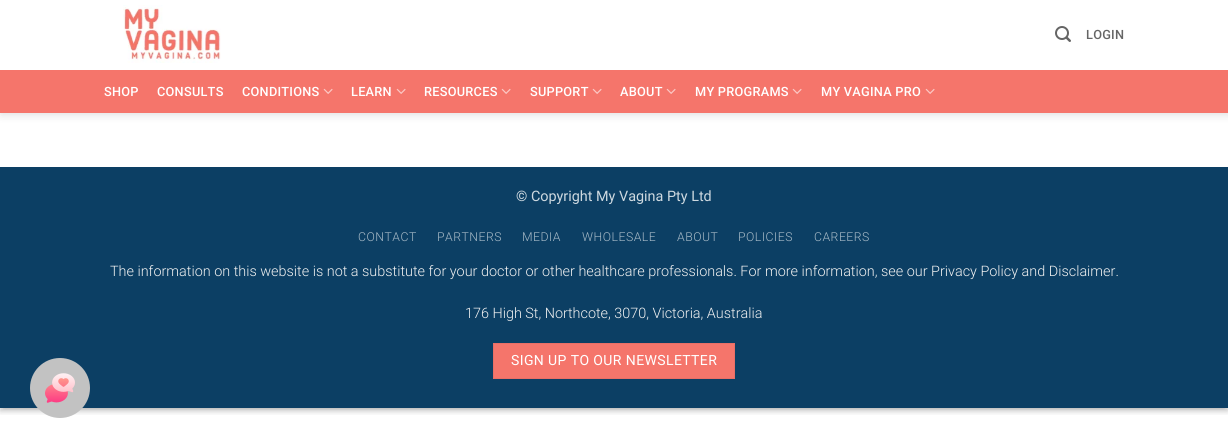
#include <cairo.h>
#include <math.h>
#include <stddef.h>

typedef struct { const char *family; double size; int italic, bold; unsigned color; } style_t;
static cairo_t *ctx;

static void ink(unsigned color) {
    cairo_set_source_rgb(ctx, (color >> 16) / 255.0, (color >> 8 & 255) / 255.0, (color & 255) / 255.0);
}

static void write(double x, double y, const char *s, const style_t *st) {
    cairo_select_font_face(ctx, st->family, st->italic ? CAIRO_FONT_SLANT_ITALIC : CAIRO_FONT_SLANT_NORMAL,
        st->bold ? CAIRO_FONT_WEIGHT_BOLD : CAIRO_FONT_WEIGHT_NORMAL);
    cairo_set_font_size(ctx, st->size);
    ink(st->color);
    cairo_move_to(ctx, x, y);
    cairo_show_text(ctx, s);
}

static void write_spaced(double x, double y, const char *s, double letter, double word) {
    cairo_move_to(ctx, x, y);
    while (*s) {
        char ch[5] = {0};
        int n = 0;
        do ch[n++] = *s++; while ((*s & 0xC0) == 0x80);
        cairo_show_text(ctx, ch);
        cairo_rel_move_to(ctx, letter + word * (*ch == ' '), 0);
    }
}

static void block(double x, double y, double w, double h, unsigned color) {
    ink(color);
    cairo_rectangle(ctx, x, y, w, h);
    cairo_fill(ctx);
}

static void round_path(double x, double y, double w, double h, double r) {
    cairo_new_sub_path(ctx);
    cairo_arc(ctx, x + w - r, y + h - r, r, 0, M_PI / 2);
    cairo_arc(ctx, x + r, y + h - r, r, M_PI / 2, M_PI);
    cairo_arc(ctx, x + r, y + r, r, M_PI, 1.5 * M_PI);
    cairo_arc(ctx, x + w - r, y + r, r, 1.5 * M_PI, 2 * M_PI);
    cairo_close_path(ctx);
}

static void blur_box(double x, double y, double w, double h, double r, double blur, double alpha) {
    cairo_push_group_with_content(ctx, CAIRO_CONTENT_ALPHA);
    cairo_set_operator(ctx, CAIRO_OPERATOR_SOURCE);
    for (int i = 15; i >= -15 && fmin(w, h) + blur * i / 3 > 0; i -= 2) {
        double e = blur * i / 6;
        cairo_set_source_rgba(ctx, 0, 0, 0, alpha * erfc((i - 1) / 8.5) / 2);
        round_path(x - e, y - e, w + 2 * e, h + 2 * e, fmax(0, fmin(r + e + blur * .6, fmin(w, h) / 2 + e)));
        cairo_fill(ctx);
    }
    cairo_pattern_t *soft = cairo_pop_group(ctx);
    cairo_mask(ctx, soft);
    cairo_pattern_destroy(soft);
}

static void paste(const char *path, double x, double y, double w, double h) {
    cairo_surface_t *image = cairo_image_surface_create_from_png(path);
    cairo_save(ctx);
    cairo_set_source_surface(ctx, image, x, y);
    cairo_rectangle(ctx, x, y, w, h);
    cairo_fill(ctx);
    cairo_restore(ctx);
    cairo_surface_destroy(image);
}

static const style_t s1 = {"Roboto", 14.4, 0, 0, 0xced9e0};
static const style_t s2 = {"Roboto Light", 14.4, 0, 0, 0xf1f1f1};

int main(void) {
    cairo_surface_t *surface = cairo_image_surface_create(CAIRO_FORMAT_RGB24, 1228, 448);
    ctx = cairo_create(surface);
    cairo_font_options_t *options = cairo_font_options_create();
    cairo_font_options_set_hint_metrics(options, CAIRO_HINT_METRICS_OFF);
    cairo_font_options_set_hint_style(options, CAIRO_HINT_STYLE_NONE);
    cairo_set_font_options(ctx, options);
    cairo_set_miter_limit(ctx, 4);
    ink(0xffffff);
    cairo_paint(ctx);
    cairo_save(ctx);
    cairo_rectangle(ctx, 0, 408, 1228, 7);
    cairo_clip(ctx);
    ink(0x000000);
    blur_box(0, -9, 1228, 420, 0, 3, 0.23);
    cairo_restore(ctx);
    cairo_save(ctx);
    cairo_rectangle(ctx, 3, 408, 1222, 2);
    cairo_clip(ctx);
    ink(0x000000);
    blur_box(4, -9, 1220, 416, 0, 3, 0.16);
    cairo_restore(ctx);
    ink(0x000000);
    blur_box(1, 1, 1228, 113, 0, 5, 0.15);
    block(0, 0, 1228, 70, 0xffffff);
    paste("pic1.png", 123, 5, 98, 58);
    paste("pic2.png", 1055, 26, 16, 16);
    cairo_select_font_face(ctx, "Roboto Medium", CAIRO_FONT_SLANT_NORMAL, CAIRO_FONT_WEIGHT_NORMAL);
    cairo_set_font_size(ctx, 12.75);
    ink(0x656565);
    write_spaced(1086, 39, "LOGIN", 0.25, 0);
    block(0, 70, 1228, 43, 0xf5756b);
    ink(0xffffff);
    write_spaced(104, 96, "SHOP", 0.25, 0);
    write_spaced(157, 96, "CONSULTS", 0.25, 0);
    write_spaced(242, 96, "CONDITIONS", 0.25, 0);
    paste("pic3.png", 323, 88, 10, 6);
    write_spaced(351, 96, "LEARN", 0.25, 0);
    paste("pic3.png", 396, 88, 10, 6);
    write_spaced(424, 96, "RESOURCES", 0.25, 0);
    paste("pic3.png", 501, 88, 10, 6);
    write_spaced(530, 96, "SUPPORT", 0.25, 0);
    paste("pic3.png", 592, 88, 10, 6);
    write_spaced(620, 96, "ABOUT", 0.25, 0);
    paste("pic3.png", 666, 88, 10, 6);
    write_spaced(695, 96, "MY PROGRAMS", 0.25, 0);
    paste("pic3.png", 792, 88, 10, 6);
    write_spaced(821, 96, "MY VAGINA PRO", 0.25, 0);
    paste("pic3.png", 925, 88, 10, 6);
    block(0, 167, 1228, 241, 0x0c3f64);
    write(516, 201, "© Copyright My Vagina Pty Ltd", &s1);
    cairo_select_font_face(ctx, "Roboto Light", CAIRO_FONT_SLANT_NORMAL, CAIRO_FONT_WEIGHT_NORMAL);
    cairo_set_font_size(ctx, 12.25);
    ink(0xa7bac7);
    write_spaced(358, 241, "CONTACT", 0.5, 0);
    write_spaced(437, 241, "PARTNERS", 0.5, 0);
    write_spaced(522, 241, "MEDIA", 0.5, 0);
    write_spaced(582, 241, "WHOLESALE", 0.5, 0);
    write_spaced(677, 241, "ABOUT", 0.5, 0);
    write_spaced(738, 241, "POLICIES", 0.5, 0);
    write_spaced(814, 241, "CAREERS", 0.5, 0);
    write(110, 276, "The information on this website is not a substitute for your doctor or other healthcare professionals. For more information, see our Privacy Policy and Disclaimer.", &s2);
    write(465, 318, "176 High St, Northcote, 3070, Victoria, Australia", &s2);
    ink(0xf5756b);
    cairo_rectangle(ctx, 493.5, 343.5, 241, 35);
    cairo_fill_preserve(ctx);
    ink(0xe96f66);
    cairo_set_line_width(ctx, 1);
    cairo_stroke(ctx);
    cairo_select_font_face(ctx, "Roboto", CAIRO_FONT_SLANT_NORMAL, CAIRO_FONT_WEIGHT_NORMAL);
    cairo_set_font_size(ctx, 14);
    ink(0xffffff);
    write_spaced(511, 365, "SIGN UP TO OUR NEWSLETTER", 0.4, 0);
    ink(0xc2c2c2);
    cairo_new_path(ctx);
    cairo_arc(ctx, 60, 388, 30, 0, 2 * M_PI);
    cairo_fill(ctx);
    paste("pic4.png", 45, 373, 30, 30);
    cairo_surface_write_to_png(surface, "screenshot.png");
    cairo_font_options_destroy(options);
    cairo_destroy(ctx);
    cairo_surface_destroy(surface);
    return 0;
}
